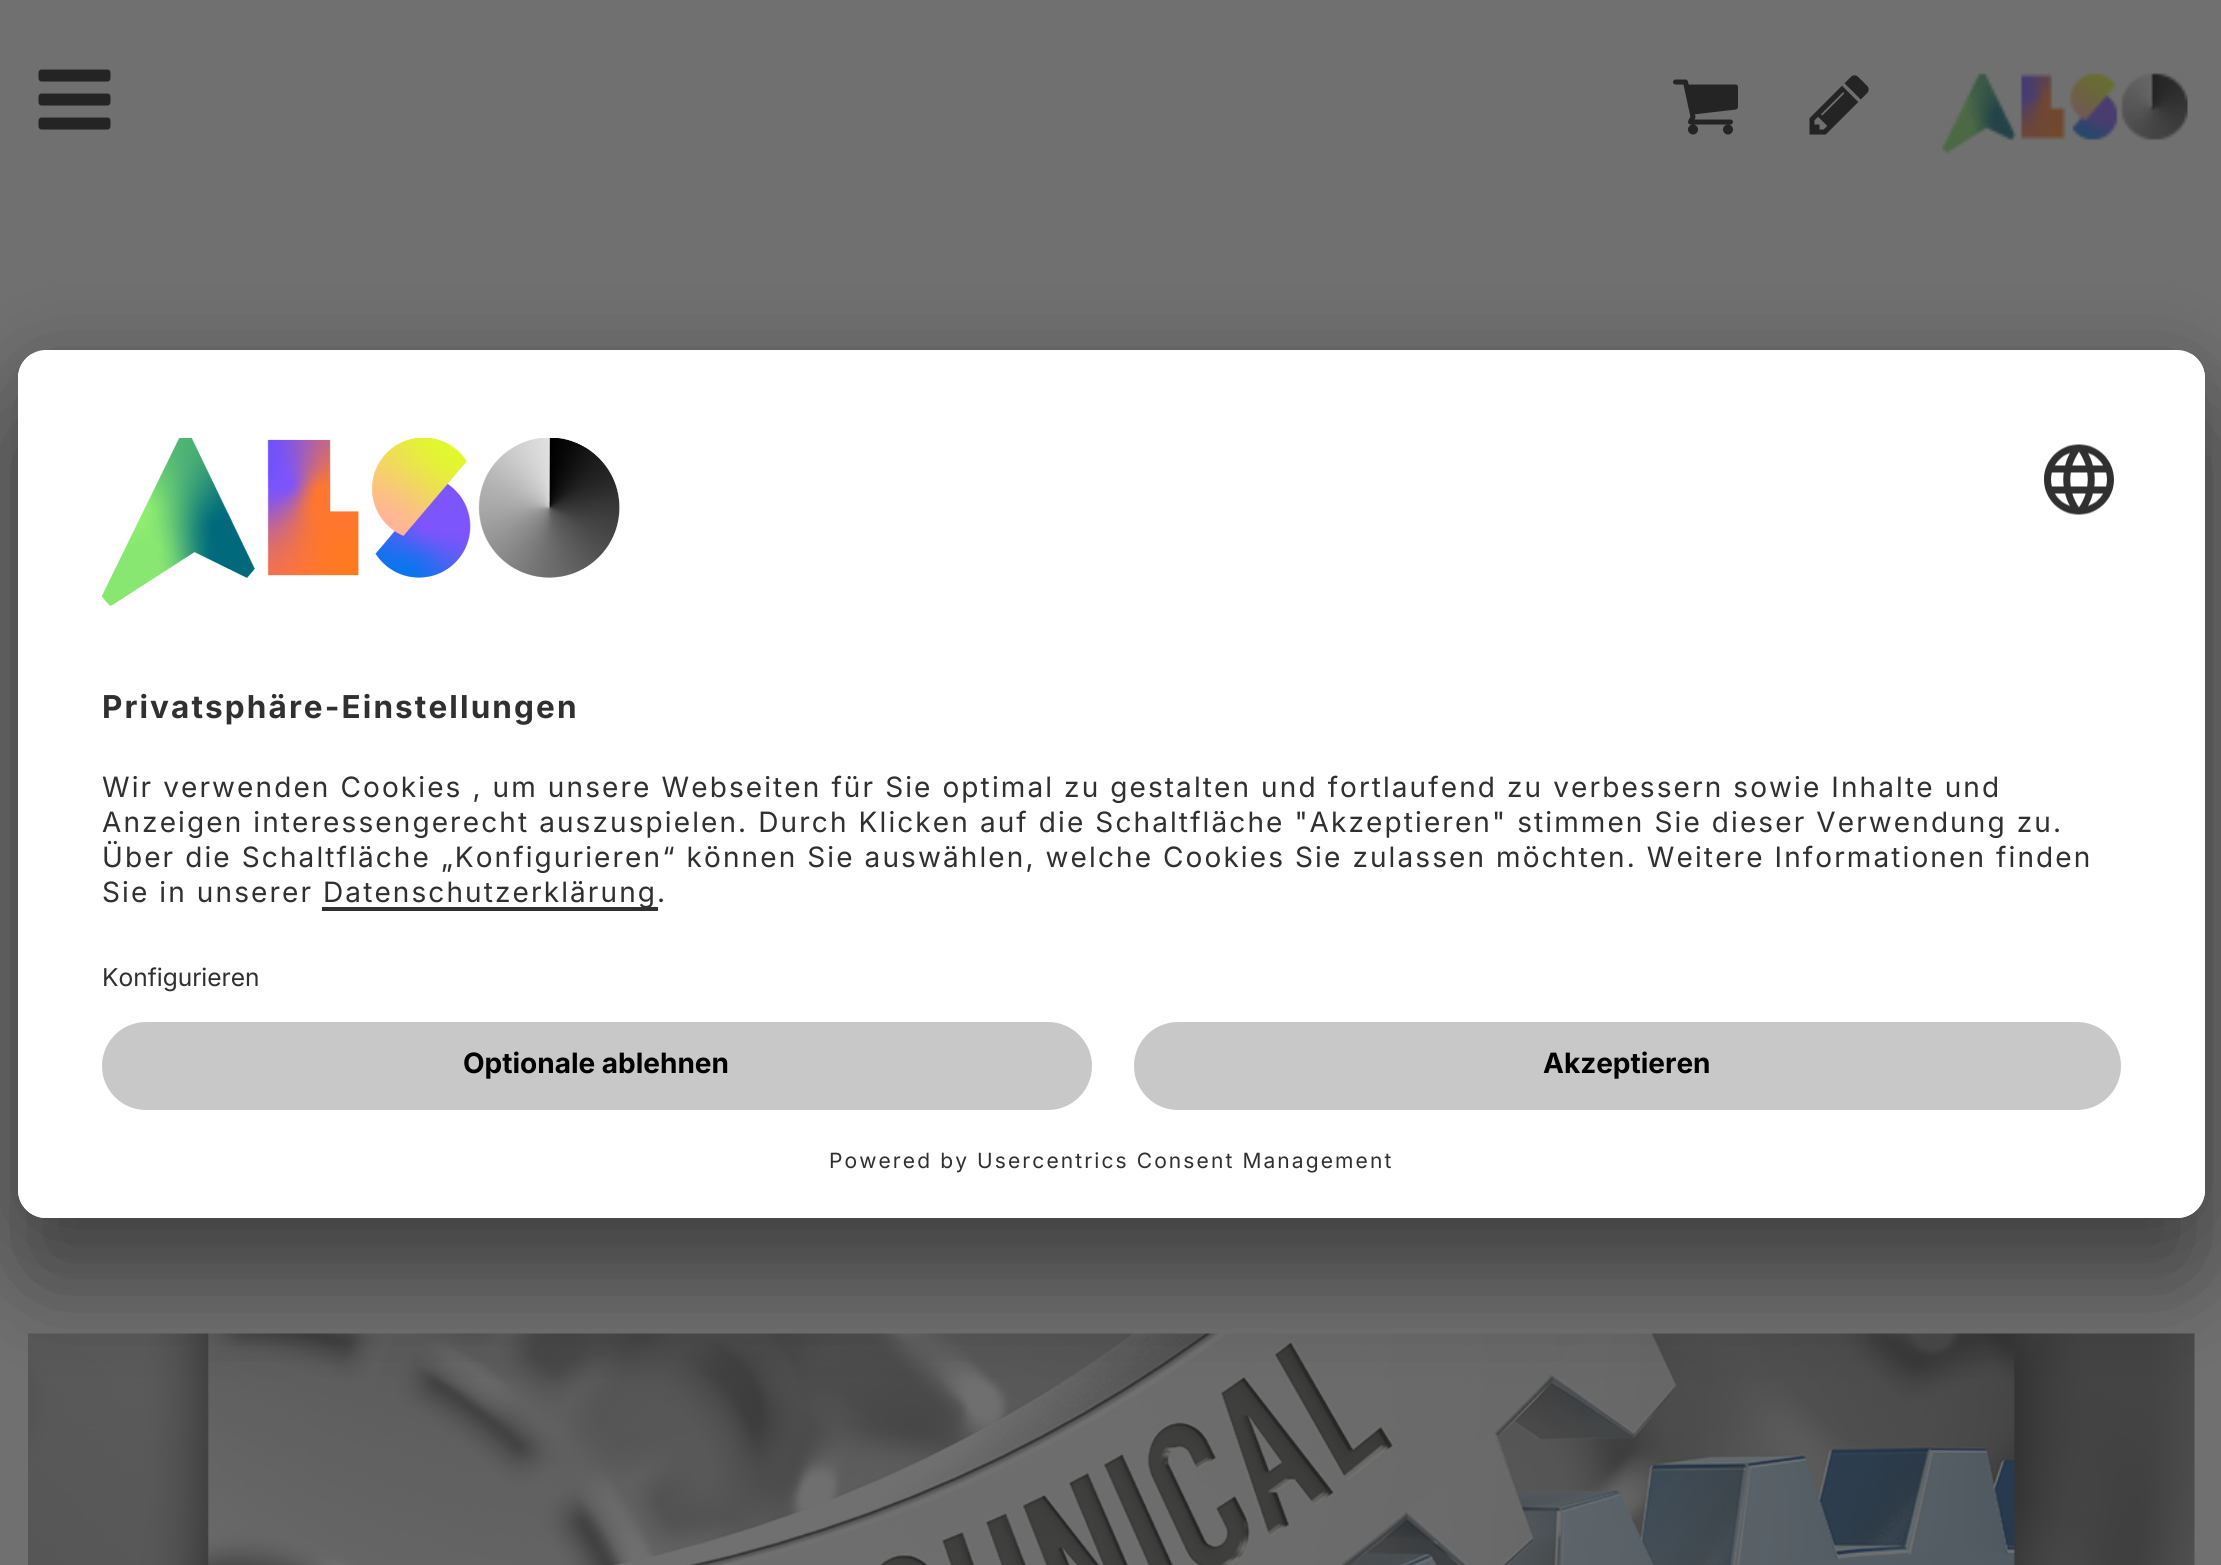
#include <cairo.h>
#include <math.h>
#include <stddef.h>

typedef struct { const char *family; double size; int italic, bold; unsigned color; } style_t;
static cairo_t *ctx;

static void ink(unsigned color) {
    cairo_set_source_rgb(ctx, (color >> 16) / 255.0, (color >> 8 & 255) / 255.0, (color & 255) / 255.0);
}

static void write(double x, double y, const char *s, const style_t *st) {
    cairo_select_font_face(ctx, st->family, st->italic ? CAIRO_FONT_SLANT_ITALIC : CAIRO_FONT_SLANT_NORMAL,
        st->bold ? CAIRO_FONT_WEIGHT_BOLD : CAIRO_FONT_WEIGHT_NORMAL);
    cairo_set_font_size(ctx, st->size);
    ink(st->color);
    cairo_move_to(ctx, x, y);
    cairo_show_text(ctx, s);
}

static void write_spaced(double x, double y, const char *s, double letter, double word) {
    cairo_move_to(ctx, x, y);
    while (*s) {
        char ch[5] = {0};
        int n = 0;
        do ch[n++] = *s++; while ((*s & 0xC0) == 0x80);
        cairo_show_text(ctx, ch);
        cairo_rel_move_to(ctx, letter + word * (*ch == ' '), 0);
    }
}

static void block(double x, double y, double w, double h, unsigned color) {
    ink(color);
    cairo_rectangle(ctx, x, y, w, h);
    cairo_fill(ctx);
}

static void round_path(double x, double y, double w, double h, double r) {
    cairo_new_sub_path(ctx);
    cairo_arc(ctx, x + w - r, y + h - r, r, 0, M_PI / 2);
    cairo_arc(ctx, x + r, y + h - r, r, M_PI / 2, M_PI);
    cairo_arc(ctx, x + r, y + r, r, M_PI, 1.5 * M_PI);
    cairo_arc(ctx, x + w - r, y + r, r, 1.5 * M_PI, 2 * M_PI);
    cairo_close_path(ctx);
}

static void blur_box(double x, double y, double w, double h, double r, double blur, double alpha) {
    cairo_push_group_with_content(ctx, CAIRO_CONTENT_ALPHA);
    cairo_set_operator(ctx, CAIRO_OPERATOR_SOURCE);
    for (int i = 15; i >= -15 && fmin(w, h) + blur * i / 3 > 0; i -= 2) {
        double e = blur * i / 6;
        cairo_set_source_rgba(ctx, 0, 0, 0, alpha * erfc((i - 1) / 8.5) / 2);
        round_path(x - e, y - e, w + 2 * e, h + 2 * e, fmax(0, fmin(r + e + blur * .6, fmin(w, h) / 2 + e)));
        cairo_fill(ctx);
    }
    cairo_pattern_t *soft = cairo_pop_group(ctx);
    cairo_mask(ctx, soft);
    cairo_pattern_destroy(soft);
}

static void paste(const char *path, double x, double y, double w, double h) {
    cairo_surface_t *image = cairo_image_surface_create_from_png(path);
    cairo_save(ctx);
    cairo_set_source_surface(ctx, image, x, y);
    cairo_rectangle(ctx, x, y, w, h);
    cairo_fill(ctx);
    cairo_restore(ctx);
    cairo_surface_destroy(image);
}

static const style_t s1 = {"Inter", 24.5, 0, 0, 0x303030};
static const style_t s2 = {"Inter", 28, 0, 1, 0x000000};

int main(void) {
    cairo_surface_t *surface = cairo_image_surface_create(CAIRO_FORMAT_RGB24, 2221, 1565);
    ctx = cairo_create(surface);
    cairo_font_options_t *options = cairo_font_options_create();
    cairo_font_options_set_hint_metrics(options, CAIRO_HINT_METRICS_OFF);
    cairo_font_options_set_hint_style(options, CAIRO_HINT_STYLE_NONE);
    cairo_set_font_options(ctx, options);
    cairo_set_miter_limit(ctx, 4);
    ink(0x707070);
    cairo_paint(ctx);
    paste("pic1.png", 38, 69, 73, 61);
    paste("pic2.png", 1673, 79, 65, 56);
    paste("pic3.png", 1809, 75, 60, 60);
    paste("pic4.png", 1942, 73, 246, 81);
    paste("pic7.png", 28, 1333, 2167, 232);
    ink(0x000000);
    blur_box(18, 420, 2187, 868, 28, 49, 0.3);
    blur_box(18, 368, 2187, 868, 28, 45.5, 0.22);
    ink(0xffffff);
    round_path(18, 350, 2187, 868, 28);
    cairo_fill(ctx);
    cairo_save(ctx);
    round_path(18, 350, 2187, 868, 28);
    cairo_clip(ctx);
    cairo_new_path(ctx);
    cairo_move_to(ctx, 46, 350);
    cairo_line_to(ctx, 2177, 350);
    cairo_curve_to(ctx, 2192.5, 350, 2205, 362.5, 2205, 378);
    cairo_line_to(ctx, 2205, 994);
    cairo_line_to(ctx, 18, 994);
    cairo_line_to(ctx, 18, 378);
    cairo_curve_to(ctx, 18, 362.5, 30.5, 350, 46, 350);
    cairo_close_path(ctx);
    cairo_clip(ctx);
    block(18, 354, 2187, 640, 0xffffff);
    cairo_restore(ctx);
    paste("pic5.png", 102, 438, 518, 168);
    paste("pic6.png", 2044, 444, 70, 71);
    cairo_select_font_face(ctx, "Inter", CAIRO_FONT_SLANT_NORMAL, CAIRO_FONT_WEIGHT_BOLD);
    cairo_set_font_size(ctx, 31.5);
    ink(0x303030);
    write_spaced(102, 718, "Privatsphäre-Einstellungen", 2.1, 0);
    cairo_select_font_face(ctx, "Inter", CAIRO_FONT_SLANT_NORMAL, CAIRO_FONT_WEIGHT_NORMAL);
    cairo_set_font_size(ctx, 28);
    write_spaced(102, 797, "Wir verwenden Cookies , um unsere Webseiten für Sie optimal zu gestalten und fortlaufend zu verbessern sowie Inhalte und", 2.1, 0);
    write_spaced(102, 832, "Anzeigen interessengerecht auszuspielen. Durch Klicken auf die Schaltfläche \"Akzeptieren\" stimmen Sie dieser Verwendung zu.", 2.1, 0);
    write_spaced(102, 867, "Über die Schaltfläche „Konfigurieren“ können Sie auswählen, welche Cookies Sie zulassen möchten. Weitere Informationen finden", 2.1, 0);
    write_spaced(102, 902, "Sie in unserer", 2.1, 0);
    block(322, 907, 336, 4, 0x303030);
    write_spaced(323, 902, "Datenschutzerklärung.", 2.1, 0);
    write(102, 986, "Konfigurieren", &s1);
    ink(0xffffff);
    cairo_new_path(ctx);
    cairo_move_to(ctx, 18, 994);
    cairo_line_to(ctx, 2205, 994);
    cairo_line_to(ctx, 2205, 1190);
    cairo_curve_to(ctx, 2205, 1205.5, 2192.5, 1218, 2177, 1218);
    cairo_line_to(ctx, 46, 1218);
    cairo_curve_to(ctx, 30.5, 1218, 18, 1205.5, 18, 1190);
    cairo_close_path(ctx);
    cairo_fill(ctx);
    ink(0xc8c8c8);
    round_path(102, 1022, 990, 88, 44);
    cairo_fill(ctx);
    write(463, 1073, "Optionale ablehnen", &s2);
    ink(0xc8c8c8);
    round_path(1134, 1022, 987, 88, 44);
    cairo_fill(ctx);
    write(1543, 1073, "Akzeptieren", &s2);
    cairo_select_font_face(ctx, "Inter", CAIRO_FONT_SLANT_NORMAL, CAIRO_FONT_WEIGHT_NORMAL);
    cairo_set_font_size(ctx, 21);
    ink(0x303030);
    write_spaced(829, 1168, "Powered by Usercentrics Consent Management", 2.1, 0);
    cairo_surface_write_to_png(surface, "screenshot.png");
    cairo_font_options_destroy(options);
    cairo_destroy(ctx);
    cairo_surface_destroy(surface);
    return 0;
}
